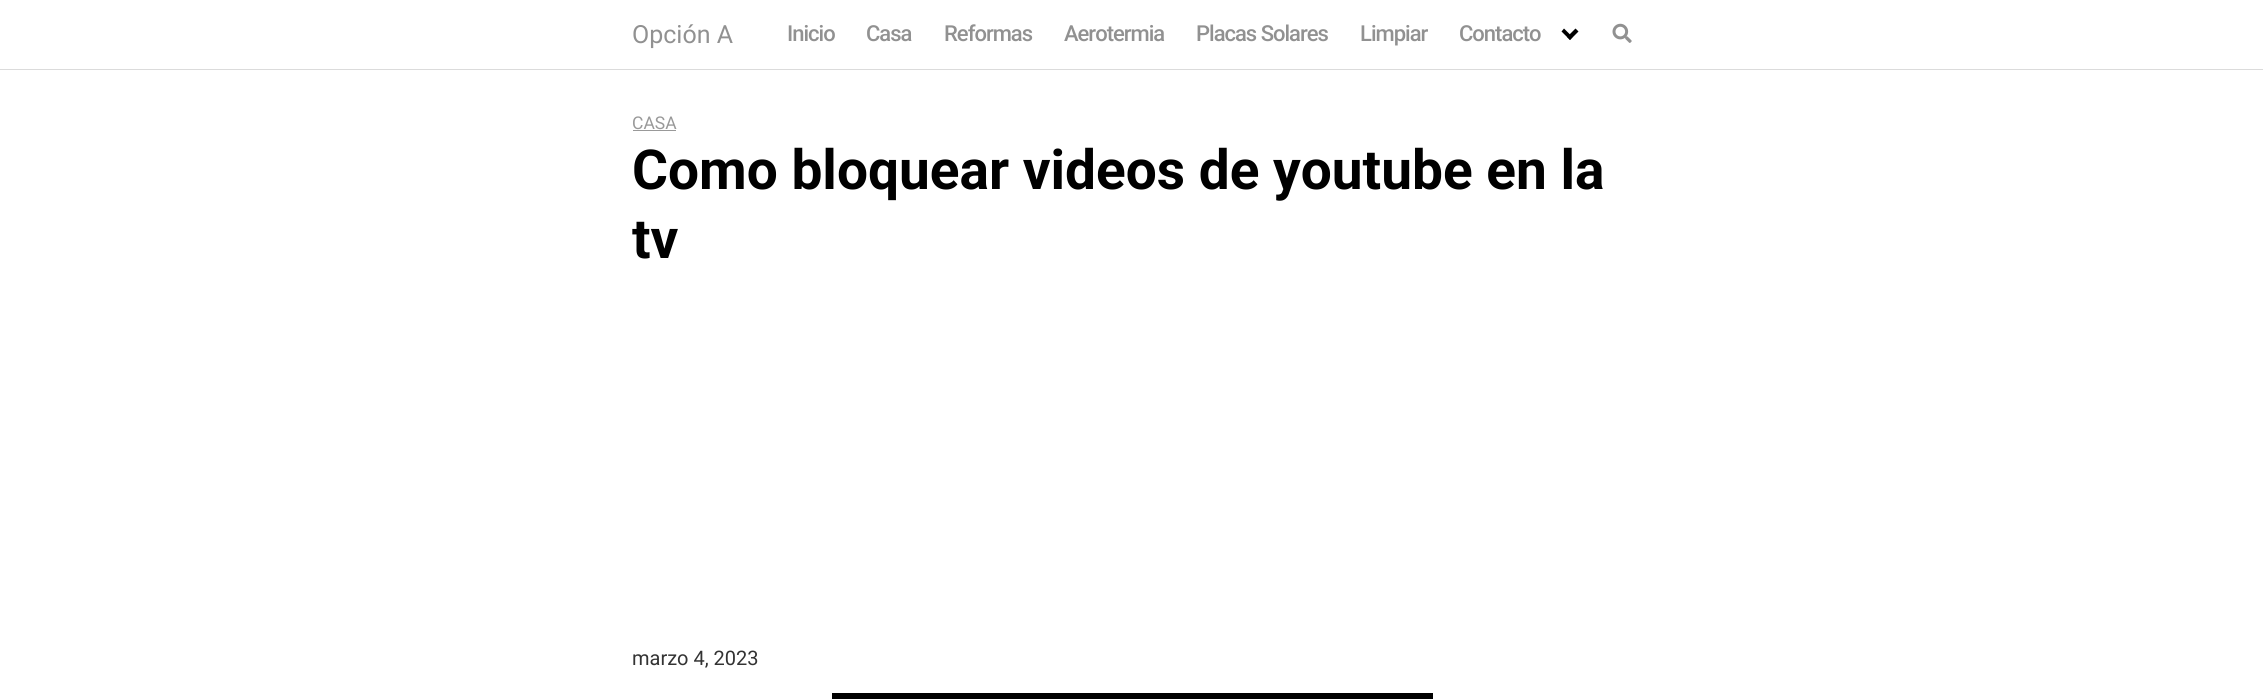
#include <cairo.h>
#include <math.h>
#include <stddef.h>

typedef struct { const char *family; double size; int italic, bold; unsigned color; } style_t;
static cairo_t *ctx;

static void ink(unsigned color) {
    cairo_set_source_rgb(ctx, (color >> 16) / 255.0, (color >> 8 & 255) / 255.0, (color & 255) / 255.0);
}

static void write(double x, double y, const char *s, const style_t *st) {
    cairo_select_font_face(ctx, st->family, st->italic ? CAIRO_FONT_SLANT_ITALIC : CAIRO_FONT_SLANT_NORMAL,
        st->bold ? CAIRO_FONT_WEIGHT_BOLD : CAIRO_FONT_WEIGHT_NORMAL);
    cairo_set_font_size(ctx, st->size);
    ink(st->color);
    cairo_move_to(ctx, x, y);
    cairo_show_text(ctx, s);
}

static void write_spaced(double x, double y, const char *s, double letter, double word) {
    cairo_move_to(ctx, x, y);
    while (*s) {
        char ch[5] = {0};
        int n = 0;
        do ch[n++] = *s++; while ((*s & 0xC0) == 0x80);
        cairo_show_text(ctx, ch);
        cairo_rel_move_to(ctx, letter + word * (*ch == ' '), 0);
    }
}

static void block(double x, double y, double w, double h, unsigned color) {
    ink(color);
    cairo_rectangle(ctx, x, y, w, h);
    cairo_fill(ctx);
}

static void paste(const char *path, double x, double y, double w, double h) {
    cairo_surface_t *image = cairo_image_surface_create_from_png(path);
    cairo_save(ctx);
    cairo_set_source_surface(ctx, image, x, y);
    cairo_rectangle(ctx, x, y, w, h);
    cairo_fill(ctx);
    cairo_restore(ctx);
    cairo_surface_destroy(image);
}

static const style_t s1 = {"Roboto", 25, 0, 0, 0x919191};
static const style_t s2 = {"Roboto", 17.5, 0, 0, 0x999999};
static const style_t s3 = {"Roboto", 55, 0, 1, 0x000000};
static const style_t s4 = {"Roboto", 20, 0, 0, 0x333333};

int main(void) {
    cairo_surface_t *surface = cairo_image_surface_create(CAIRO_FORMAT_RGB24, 2263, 699);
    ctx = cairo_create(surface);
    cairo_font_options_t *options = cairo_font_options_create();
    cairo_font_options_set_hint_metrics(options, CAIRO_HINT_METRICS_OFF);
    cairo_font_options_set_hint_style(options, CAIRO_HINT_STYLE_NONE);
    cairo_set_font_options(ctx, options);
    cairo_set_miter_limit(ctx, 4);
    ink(0xffffff);
    cairo_paint(ctx);
    block(0, 69, 2263, 1, 0xdbdbdb);
    write(632, 43, "Opción A", &s1);
    cairo_select_font_face(ctx, "Roboto Medium", CAIRO_FONT_SLANT_NORMAL, CAIRO_FONT_WEIGHT_NORMAL);
    cairo_set_font_size(ctx, 22);
    write_spaced(787, 41, "Inicio", -1, 0);
    write_spaced(866, 41, "Casa", -1, 0);
    write_spaced(944, 41, "Reformas", -1, 0);
    write_spaced(1064, 41, "Aerotermia", -1, 0);
    write_spaced(1196, 41, "Placas Solares", -1, 0);
    write_spaced(1360, 41, "Limpiar", -1, 0);
    write_spaced(1459, 41, "Contacto", -1, 0);
    ink(0x000000);
    cairo_new_path(ctx);
    cairo_move_to(ctx, 1561.5, 31.5);
    cairo_line_to(ctx, 1564, 28.5);
    cairo_line_to(ctx, 1572.5, 37);
    cairo_line_to(ctx, 1570, 40);
    cairo_close_path(ctx);
    cairo_fill(ctx);
    cairo_new_path(ctx);
    cairo_move_to(ctx, 1567, 37);
    cairo_line_to(ctx, 1575.5, 28.5);
    cairo_line_to(ctx, 1578.5, 31.5);
    cairo_line_to(ctx, 1570, 40);
    cairo_close_path(ctx);
    cairo_fill(ctx);
    paste("pic1.png", 1612, 23, 20, 20);
    write(632, 129, "CASA", &s2);
    block(633, 130, 43, 1, 0x999999);
    write(632, 189, "Como bloquear videos de youtube en la", &s3);
    write(632, 258, "tv", &s3);
    write(632, 665, "marzo 4, 2023", &s4);
    block(832, 693, 601, 6, 0x000000);
    cairo_surface_write_to_png(surface, "screenshot.png");
    cairo_font_options_destroy(options);
    cairo_destroy(ctx);
    cairo_surface_destroy(surface);
    return 0;
}
